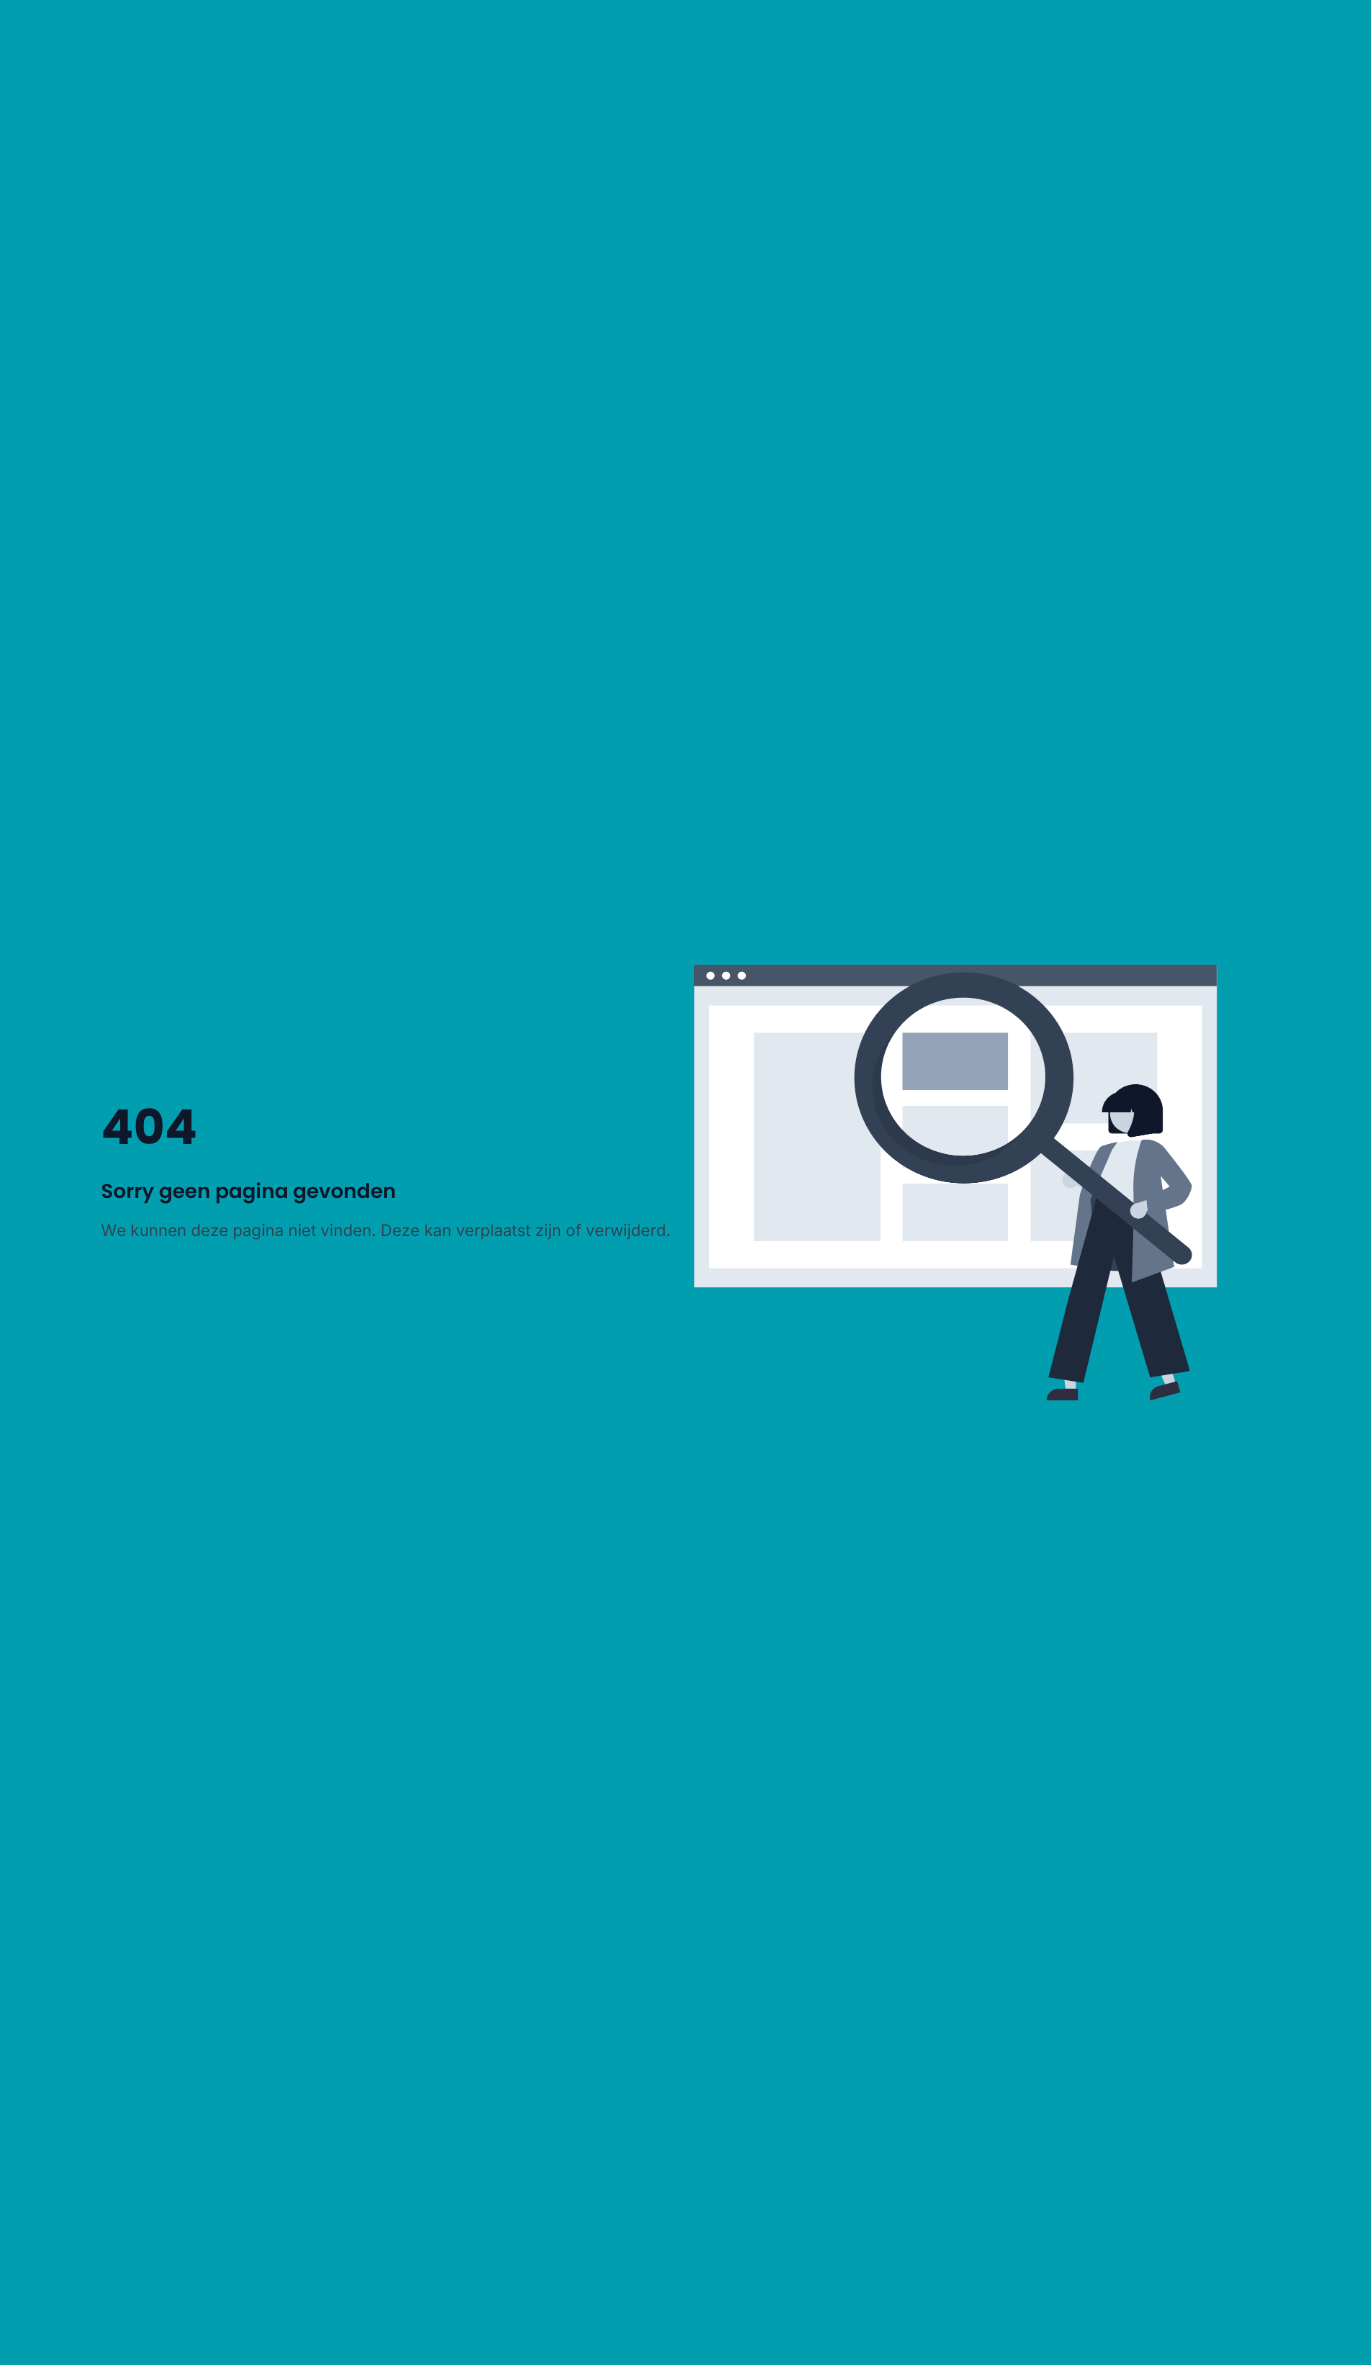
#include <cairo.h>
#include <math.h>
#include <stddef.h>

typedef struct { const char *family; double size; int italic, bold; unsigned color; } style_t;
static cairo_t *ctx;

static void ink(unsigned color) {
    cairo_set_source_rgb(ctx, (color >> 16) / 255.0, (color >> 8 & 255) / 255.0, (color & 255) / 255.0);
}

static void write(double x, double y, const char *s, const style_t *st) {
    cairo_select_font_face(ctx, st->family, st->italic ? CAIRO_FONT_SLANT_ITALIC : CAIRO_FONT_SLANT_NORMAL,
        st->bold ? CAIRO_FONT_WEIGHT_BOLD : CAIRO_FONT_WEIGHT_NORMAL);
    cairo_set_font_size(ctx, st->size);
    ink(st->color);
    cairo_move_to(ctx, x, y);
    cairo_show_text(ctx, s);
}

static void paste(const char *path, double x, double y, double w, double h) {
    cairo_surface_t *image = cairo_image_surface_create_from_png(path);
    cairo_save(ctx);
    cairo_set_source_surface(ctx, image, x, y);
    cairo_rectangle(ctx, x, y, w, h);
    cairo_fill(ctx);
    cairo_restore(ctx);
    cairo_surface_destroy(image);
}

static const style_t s1 = {"Poppins", 48, 0, 1, 0x0f172a};
static const style_t s2 = {"Poppins SemiBold", 20, 0, 0, 0x0f172a};
static const style_t s3 = {"Inter", 16, 0, 0, 0x304352};

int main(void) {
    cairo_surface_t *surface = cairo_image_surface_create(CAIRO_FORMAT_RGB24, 1371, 2365);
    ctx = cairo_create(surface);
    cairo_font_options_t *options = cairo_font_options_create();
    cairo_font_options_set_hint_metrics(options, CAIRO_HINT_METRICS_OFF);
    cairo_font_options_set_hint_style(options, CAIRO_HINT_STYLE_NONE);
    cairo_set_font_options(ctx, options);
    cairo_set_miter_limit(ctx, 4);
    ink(0x009eaf);
    cairo_paint(ctx);
    write(101, 1144, "404", &s1);
    write(101, 1198, "Sorry geen pagina gevonden", &s2);
    write(101, 1236, "We kunnen deze pagina niet vinden. Deze kan verplaatst zijn of verwijderd.", &s3);
    paste("pic1.png", 694, 964, 524, 437);
    cairo_surface_write_to_png(surface, "screenshot.png");
    cairo_font_options_destroy(options);
    cairo_destroy(ctx);
    cairo_surface_destroy(surface);
    return 0;
}
